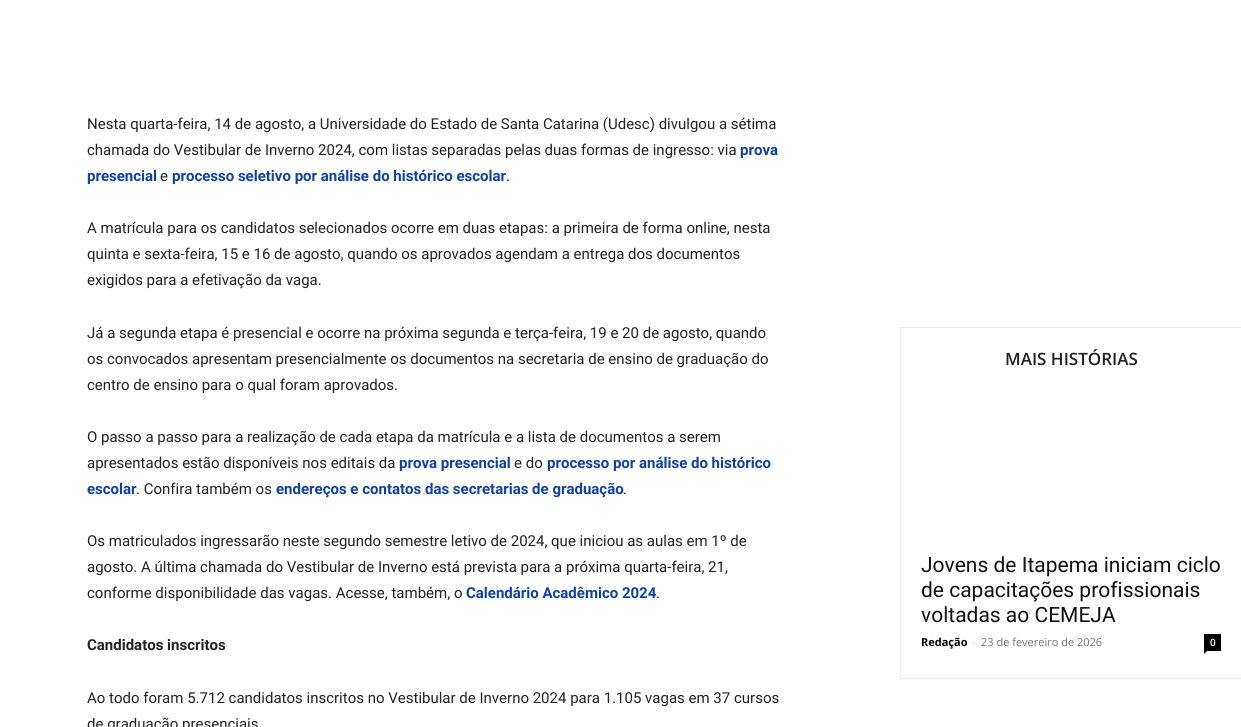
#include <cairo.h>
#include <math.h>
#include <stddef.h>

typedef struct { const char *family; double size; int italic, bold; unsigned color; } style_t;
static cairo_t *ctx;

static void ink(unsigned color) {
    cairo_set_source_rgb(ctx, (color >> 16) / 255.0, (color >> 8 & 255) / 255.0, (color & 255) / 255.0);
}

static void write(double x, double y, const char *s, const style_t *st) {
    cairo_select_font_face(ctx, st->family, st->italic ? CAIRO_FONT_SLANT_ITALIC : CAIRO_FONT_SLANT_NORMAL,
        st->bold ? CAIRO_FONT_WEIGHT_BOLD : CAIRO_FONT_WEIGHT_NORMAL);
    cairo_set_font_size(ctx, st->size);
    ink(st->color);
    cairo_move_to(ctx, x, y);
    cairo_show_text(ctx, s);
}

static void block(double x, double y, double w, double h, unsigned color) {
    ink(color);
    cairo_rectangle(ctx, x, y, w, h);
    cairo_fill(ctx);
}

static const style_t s1 = {"Roboto", 15, 0, 0, 0x222222};
static const style_t s2 = {"Roboto", 15, 0, 1, 0x0d42a2};
static const style_t s3 = {"Roboto", 15, 0, 1, 0x222222};
static const style_t s4 = {"Open Sans SemiBold", 17, 0, 0, 0x222222};
static const style_t s5 = {"Roboto", 21, 0, 0, 0x111111};
static const style_t s6 = {"Open Sans", 11, 0, 1, 0x000000};
static const style_t s7 = {"Open Sans", 11, 0, 0, 0xcccccc};
static const style_t s8 = {"Open Sans", 11, 0, 0, 0x767676};
static const style_t s9 = {"Open Sans SemiBold", 10, 0, 0, 0xffffff};

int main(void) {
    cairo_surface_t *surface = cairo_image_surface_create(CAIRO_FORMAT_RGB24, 1241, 727);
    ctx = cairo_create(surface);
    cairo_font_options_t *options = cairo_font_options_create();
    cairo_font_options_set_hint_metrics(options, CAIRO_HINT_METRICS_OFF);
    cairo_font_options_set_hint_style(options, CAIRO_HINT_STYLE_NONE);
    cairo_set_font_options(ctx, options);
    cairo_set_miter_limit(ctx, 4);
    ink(0xffffff);
    cairo_paint(ctx);
    write(87, 129, "Nesta quarta-feira, 14 de agosto, a Universidade do Estado de Santa Catarina (Udesc) divulgou a sétima", &s1);
    write(87, 155, "chamada do Vestibular de Inverno 2024, com listas separadas pelas duas formas de ingresso: via", &s1);
    write(740, 155, "prova", &s2);
    write(87, 181, "presencial", &s2);
    write(160, 181, "e", &s1);
    write(172, 181, "processo seletivo por análise do histórico escolar", &s2);
    write(506, 181, ".", &s1);
    write(87, 233, "A matrícula para os candidatos selecionados ocorre em duas etapas: a primeira de forma online, nesta", &s1);
    write(87, 259, "quinta e sexta-feira, 15 e 16 de agosto, quando os aprovados agendam a entrega dos documentos", &s1);
    write(87, 285, "exigidos para a efetivação da vaga.", &s1);
    write(87, 338, "Já a segunda etapa é presencial e ocorre na próxima segunda e terça-feira, 19 e 20 de agosto, quando", &s1);
    write(87, 364, "os convocados apresentam presencialmente os documentos na secretaria de ensino de graduação do", &s1);
    write(87, 390, "centro de ensino para o qual foram aprovados.", &s1);
    write(87, 442, "O passo a passo para a realização de cada etapa da matrícula e a lista de documentos a serem", &s1);
    write(87, 468, "apresentados estão disponíveis nos editais da", &s1);
    write(399, 468, "prova presencial", &s2);
    write(514, 468, "e do", &s1);
    write(547, 468, "processo por análise do histórico", &s2);
    write(87, 494, "escolar", &s2);
    write(136, 494, ". Confira também os", &s1);
    write(276, 494, "endereços e contatos das secretarias de graduação", &s2);
    write(623, 494, ".", &s1);
    write(87, 546, "Os matriculados ingressarão neste segundo semestre letivo de 2024, que iniciou as aulas em 1º de", &s1);
    write(87, 572, "agosto. A última chamada do Vestibular de Inverno está prevista para a próxima quarta-feira, 21,", &s1);
    write(87, 598, "conforme disponibilidade das vagas. Acesse, também, o", &s1);
    write(466, 598, "Calendário Acadêmico 2024", &s2);
    write(656, 598, ".", &s1);
    write(87, 650, "Candidatos inscritos", &s3);
    write(87, 703, "Ao todo foram 5.712 candidatos inscritos no Vestibular de Inverno 2024 para 1.105 vagas em 37 cursos", &s1);
    write(87, 729, "de graduação presenciais", &s1);
    block(900, 327, 341, 1, 0xededed);
    block(900, 678, 341, 1, 0xededed);
    block(900, 327, 1, 352, 0xededed);
    write(1005, 365, "MAIS HISTÓRIAS", &s4);
    write(921, 572, "Jovens de Itapema iniciam ciclo", &s5);
    write(921, 597, "de capacitações profissionais", &s5);
    write(921, 622, "voltadas ao CEMEJA", &s5);
    write(921, 646, "Redação", &s6);
    write(972, 646, "-", &s7);
    write(981, 646, "23 de fevereiro de 2026", &s8);
    block(1204, 634, 17, 17, 0x000000);
    write(1210, 646, "0", &s9);
    ink(0x000000);
    cairo_new_path(ctx);
    cairo_move_to(ctx, 1204, 651);
    cairo_line_to(ctx, 1207, 651);
    cairo_line_to(ctx, 1204, 654);
    cairo_close_path(ctx);
    cairo_fill(ctx);
    cairo_surface_write_to_png(surface, "screenshot.png");
    cairo_font_options_destroy(options);
    cairo_destroy(ctx);
    cairo_surface_destroy(surface);
    return 0;
}
